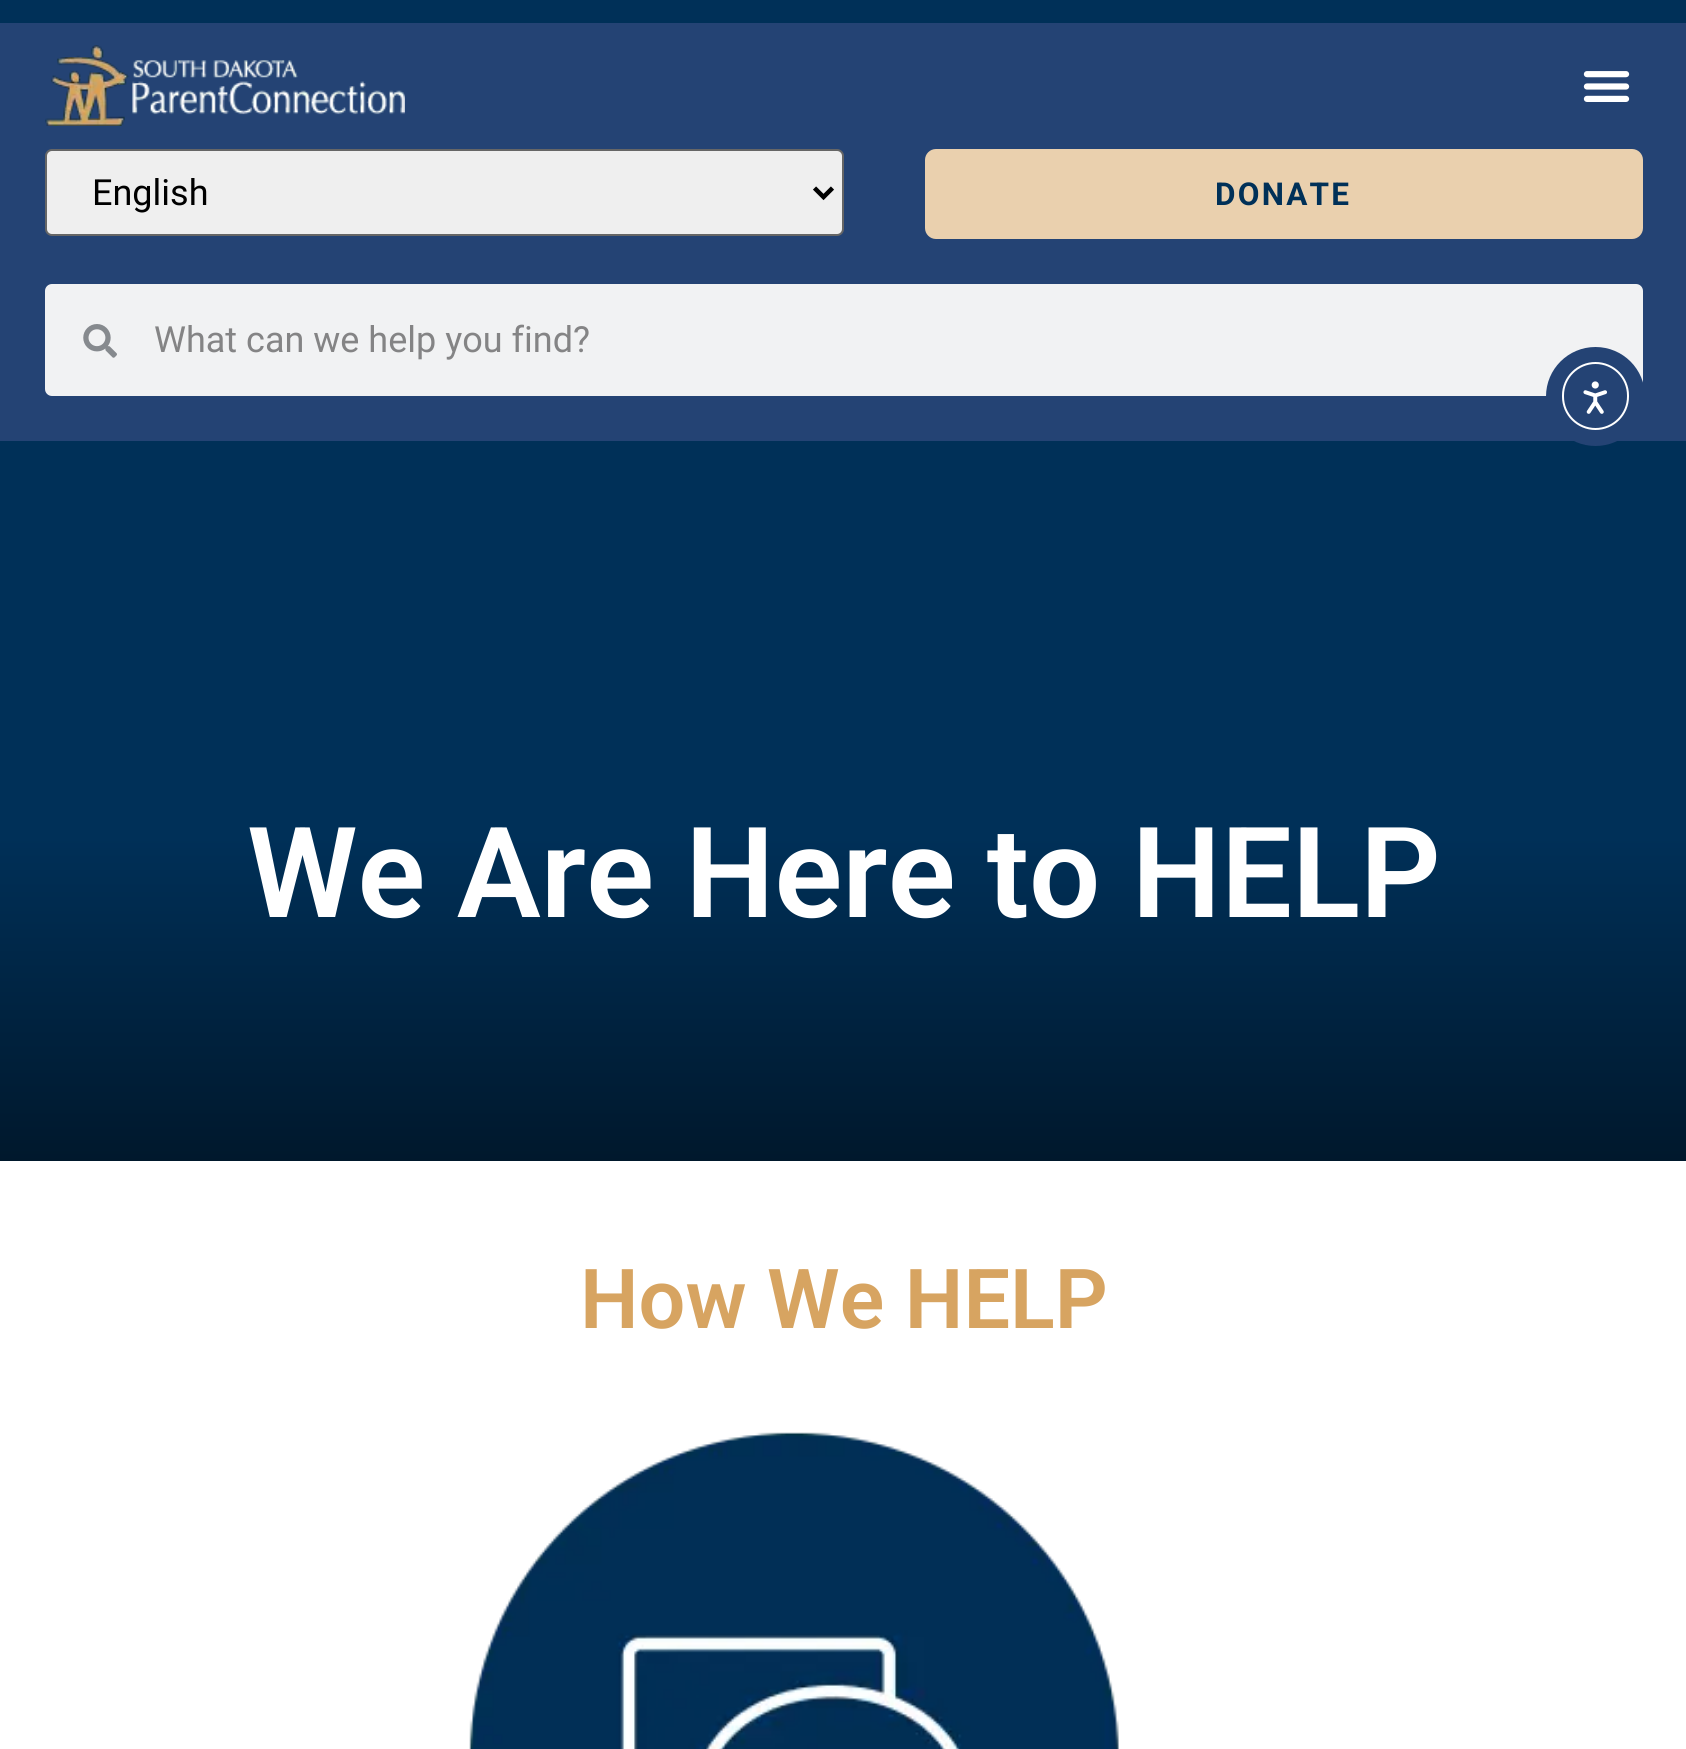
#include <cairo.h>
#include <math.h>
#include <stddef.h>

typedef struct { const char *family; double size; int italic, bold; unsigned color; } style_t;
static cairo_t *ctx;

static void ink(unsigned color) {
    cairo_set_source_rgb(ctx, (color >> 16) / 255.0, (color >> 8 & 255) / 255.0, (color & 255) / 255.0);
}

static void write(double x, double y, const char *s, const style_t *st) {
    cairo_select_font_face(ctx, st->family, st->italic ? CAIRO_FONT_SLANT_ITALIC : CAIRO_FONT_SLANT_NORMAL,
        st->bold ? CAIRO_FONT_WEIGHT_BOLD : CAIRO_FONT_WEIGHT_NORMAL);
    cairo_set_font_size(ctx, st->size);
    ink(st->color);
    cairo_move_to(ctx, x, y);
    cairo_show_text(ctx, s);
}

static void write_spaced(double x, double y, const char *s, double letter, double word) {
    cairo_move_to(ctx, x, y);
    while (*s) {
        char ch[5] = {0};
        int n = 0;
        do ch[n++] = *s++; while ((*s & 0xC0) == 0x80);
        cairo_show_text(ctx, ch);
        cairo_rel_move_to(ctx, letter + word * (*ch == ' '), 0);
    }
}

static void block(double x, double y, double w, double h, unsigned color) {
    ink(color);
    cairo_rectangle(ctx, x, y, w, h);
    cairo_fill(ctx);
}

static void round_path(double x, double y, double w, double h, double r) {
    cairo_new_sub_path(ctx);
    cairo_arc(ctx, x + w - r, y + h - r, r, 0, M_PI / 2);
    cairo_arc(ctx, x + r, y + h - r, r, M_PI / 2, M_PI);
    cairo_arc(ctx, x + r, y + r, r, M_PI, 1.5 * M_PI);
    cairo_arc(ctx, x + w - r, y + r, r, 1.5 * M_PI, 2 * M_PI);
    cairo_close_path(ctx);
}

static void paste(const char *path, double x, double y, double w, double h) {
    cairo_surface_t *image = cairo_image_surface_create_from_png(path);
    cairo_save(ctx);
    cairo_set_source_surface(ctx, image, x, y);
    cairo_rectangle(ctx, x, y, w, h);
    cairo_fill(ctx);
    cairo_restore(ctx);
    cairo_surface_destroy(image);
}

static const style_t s1 = {"Roboto", 36, 0, 0, 0x000000};
static const style_t s2 = {"Roboto", 36, 0, 0, 0x848485};
static const style_t s3 = {"Roboto SemiBold", 126, 0, 0, 0xffffff};
static const style_t s4 = {"Roboto SemiBold", 82.75, 0, 0, 0xd7a461};

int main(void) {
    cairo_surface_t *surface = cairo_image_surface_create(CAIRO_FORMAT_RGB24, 1686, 1749);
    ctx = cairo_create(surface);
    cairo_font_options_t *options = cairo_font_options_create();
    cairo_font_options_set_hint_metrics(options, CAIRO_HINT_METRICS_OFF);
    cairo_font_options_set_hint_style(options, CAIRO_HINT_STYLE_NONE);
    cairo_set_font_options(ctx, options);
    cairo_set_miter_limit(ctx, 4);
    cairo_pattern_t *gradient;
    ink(0xffffff);
    cairo_paint(ctx);
    block(0, 0, 1686, 23, 0x003058);
    block(0, 23, 1686, 418, 0x244374);
    paste("pic1.png", 45, 45, 360, 81);
    paste("pic2.png", 1583, 71, 47, 31);
    ink(0xefefef);
    round_path(46, 150, 797, 85, 6);
    cairo_fill_preserve(ctx);
    ink(0x666666);
    cairo_stroke(ctx);
    cairo_new_path(ctx);
    cairo_move_to(ctx, 814.5, 188);
    cairo_line_to(ctx, 823.5, 197);
    cairo_line_to(ctx, 832.5, 188);
    ink(0x000000);
    cairo_set_line_width(ctx, 4.5);
    cairo_stroke(ctx);
    write(92, 205, "English", &s1);
    ink(0xead0ae);
    round_path(925, 149, 718, 90, 11);
    cairo_fill(ctx);
    cairo_select_font_face(ctx, "Roboto", CAIRO_FONT_SLANT_NORMAL, CAIRO_FONT_WEIGHT_BOLD);
    cairo_set_font_size(ctx, 31.5);
    ink(0x003058);
    write_spaced(1215, 205, "DONATE", 2.25, 0);
    ink(0xf1f2f3);
    round_path(45, 284, 1598, 112, 7);
    cairo_fill(ctx);
    paste("pic3.png", 83, 324, 34, 34);
    write(154, 352, "What can we help you find?", &s2);
    gradient = cairo_pattern_create_linear(844, 441, 844, 1161);
    cairo_pattern_add_color_stop_rgba(gradient, 0.55, 0, 0.188, 0.345, 1);
    cairo_pattern_add_color_stop_rgba(gradient, 1, 0, 0.094, 0.173, 1);
    cairo_set_source(ctx, gradient);
    cairo_pattern_destroy(gradient);
    cairo_rectangle(ctx, 0, 441, 1686, 720);
    cairo_fill(ctx);
    ink(0x244374);
    cairo_arc(ctx, 1595.5, 396.5, 49.5, 0, 2 * M_PI);
    cairo_fill(ctx);
    round_path(1563, 363, 65, 66, 32.5);
    ink(0xffffff);
    cairo_set_line_width(ctx, 2);
    cairo_stroke(ctx);
    paste("pic4.png", 1583, 381, 24, 33);
    write(247, 917, "We Are Here to HELP", &s3);
    write(580, 1328, "How We HELP", &s4);
    paste("pic5.png", 469, 1432, 650, 317);
    cairo_surface_write_to_png(surface, "screenshot.png");
    cairo_font_options_destroy(options);
    cairo_destroy(ctx);
    cairo_surface_destroy(surface);
    return 0;
}
